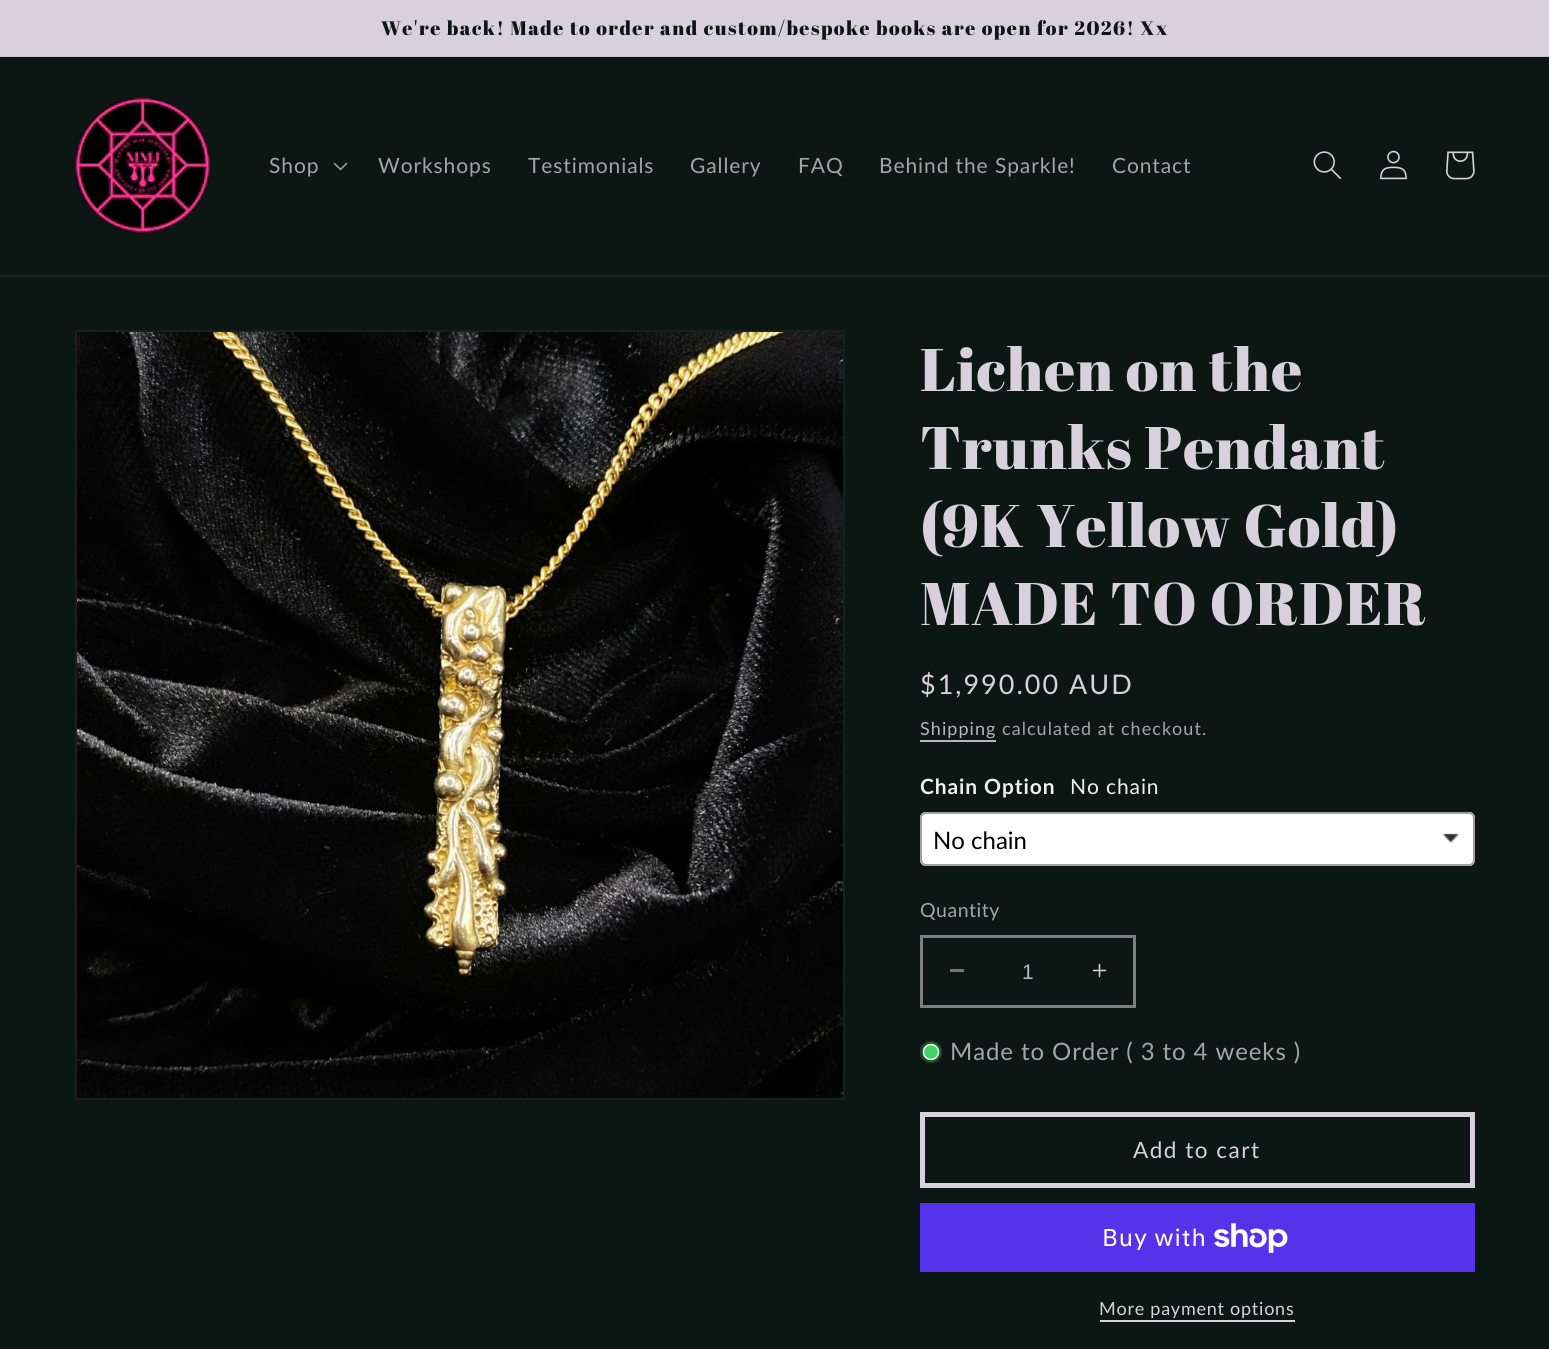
#include <cairo.h>
#include <math.h>
#include <stddef.h>

typedef struct { const char *family; double size; int italic, bold; unsigned color; } style_t;
static cairo_t *ctx;

static void ink(unsigned color) {
    cairo_set_source_rgb(ctx, (color >> 16) / 255.0, (color >> 8 & 255) / 255.0, (color & 255) / 255.0);
}

static void write(double x, double y, const char *s, const style_t *st) {
    cairo_select_font_face(ctx, st->family, st->italic ? CAIRO_FONT_SLANT_ITALIC : CAIRO_FONT_SLANT_NORMAL,
        st->bold ? CAIRO_FONT_WEIGHT_BOLD : CAIRO_FONT_WEIGHT_NORMAL);
    cairo_set_font_size(ctx, st->size);
    ink(st->color);
    cairo_move_to(ctx, x, y);
    cairo_show_text(ctx, s);
}

static void write_spaced(double x, double y, const char *s, double letter, double word) {
    cairo_move_to(ctx, x, y);
    while (*s) {
        char ch[5] = {0};
        int n = 0;
        do ch[n++] = *s++; while ((*s & 0xC0) == 0x80);
        cairo_show_text(ctx, ch);
        cairo_rel_move_to(ctx, letter + word * (*ch == ' '), 0);
    }
}

static void block(double x, double y, double w, double h, unsigned color) {
    ink(color);
    cairo_rectangle(ctx, x, y, w, h);
    cairo_fill(ctx);
}

static void round_path(double x, double y, double w, double h, double r) {
    cairo_new_sub_path(ctx);
    cairo_arc(ctx, x + w - r, y + h - r, r, 0, M_PI / 2);
    cairo_arc(ctx, x + r, y + h - r, r, M_PI / 2, M_PI);
    cairo_arc(ctx, x + r, y + r, r, M_PI, 1.5 * M_PI);
    cairo_arc(ctx, x + w - r, y + r, r, 1.5 * M_PI, 2 * M_PI);
    cairo_close_path(ctx);
}

static void paste(const char *path, double x, double y, double w, double h) {
    cairo_surface_t *image = cairo_image_surface_create_from_png(path);
    cairo_save(ctx);
    cairo_set_source_surface(ctx, image, x, y);
    cairo_rectangle(ctx, x, y, w, h);
    cairo_fill(ctx);
    cairo_restore(ctx);
    cairo_surface_destroy(image);
}

static const style_t s1 = {"Lato", 24, 0, 0, 0x000000};
static const style_t s2 = {"Liberation Sans", 21, 0, 0, 0xbab4c0};

int main(void) {
    cairo_surface_t *surface = cairo_image_surface_create(CAIRO_FORMAT_RGB24, 1549, 1349);
    ctx = cairo_create(surface);
    cairo_font_options_t *options = cairo_font_options_create();
    cairo_font_options_set_hint_metrics(options, CAIRO_HINT_METRICS_OFF);
    cairo_font_options_set_hint_style(options, CAIRO_HINT_STYLE_NONE);
    cairo_set_font_options(ctx, options);
    cairo_set_miter_limit(ctx, 4);
    ink(0x0c1713);
    cairo_paint(ctx);
    block(0, 0, 1549, 56, 0xd9d0de);
    block(0, 56, 1549, 1, 0xc9c1ce);
    cairo_select_font_face(ctx, "Abril Fatface", CAIRO_FONT_SLANT_NORMAL, CAIRO_FONT_WEIGHT_NORMAL);
    cairo_set_font_size(ctx, 19.5);
    ink(0x0c1713);
    write_spaced(381, 35, "We're back! Made to order and custom/bespoke books are open for 2026! Xx", 1.5, 0);
    block(0, 275, 1549, 2, 0x1c2623);
    paste("pic1.png", 75, 97, 135, 136);
    cairo_select_font_face(ctx, "Lato", CAIRO_FONT_SLANT_NORMAL, CAIRO_FONT_WEIGHT_NORMAL);
    cairo_set_font_size(ctx, 21);
    ink(0xa6a2ab);
    write_spaced(269, 173, "Shop", 0.9, 0);
    paste("pic2.png", 333, 162, 15, 9);
    write_spaced(378, 173, "Workshops", 0.9, 0);
    write_spaced(528, 173, "Testimonials", 0.9, 0);
    write_spaced(690, 173, "Gallery", 0.9, 0);
    write_spaced(798, 173, "FAQ", 0.9, 0);
    write_spaced(879, 173, "Behind the Sparkle!", 0.9, 0);
    write_spaced(1112, 173, "Contact", 0.9, 0);
    paste("pic3.png", 1313, 151, 28, 28);
    paste("pic4.png", 1380, 150, 27, 30);
    paste("pic5.png", 1446, 151, 29, 29);
    cairo_rectangle(ctx, 76, 331, 768, 768);
    ink(0x16201d);
    cairo_stroke(ctx);
    paste("pic6.png", 77, 332, 766, 766);
    cairo_select_font_face(ctx, "Abril Fatface", CAIRO_FONT_SLANT_NORMAL, CAIRO_FONT_WEIGHT_NORMAL);
    cairo_set_font_size(ctx, 60);
    ink(0xd9d0de);
    write_spaced(920, 391, "Lichen on the", 0.9, 0);
    write_spaced(920, 469, "Trunks Pendant", 0.9, 0);
    write_spaced(920, 547, "(9K Yellow Gold)", 0.9, 0);
    write_spaced(920, 625, "MADE TO ORDER", 0.9, 0);
    cairo_select_font_face(ctx, "Lato", CAIRO_FONT_SLANT_NORMAL, CAIRO_FONT_WEIGHT_NORMAL);
    cairo_set_font_size(ctx, 27);
    write_spaced(920, 694, "$1,990.00 AUD", 2, 0);
    cairo_set_font_size(ctx, 18);
    ink(0xbab4c0);
    write_spaced(920, 735, "Shipping", 1.05, 0);
    block(920, 740, 76, 2, 0xbab4c0);
    ink(0xa6a2ab);
    write_spaced(1002, 735, "calculated at checkout.", 1.05, 0);
    cairo_select_font_face(ctx, "Lato", CAIRO_FONT_SLANT_NORMAL, CAIRO_FONT_WEIGHT_BOLD);
    cairo_set_font_size(ctx, 21);
    ink(0xeaf2ef);
    write_spaced(920, 794, "Chain Option", 0.9, 0);
    cairo_select_font_face(ctx, "Lato", CAIRO_FONT_SLANT_NORMAL, CAIRO_FONT_WEIGHT_NORMAL);
    write_spaced(1070, 794, "No chain", 0.9, 0);
    ink(0xffffff);
    round_path(920, 812, 555, 54, 6);
    cairo_fill(ctx);
    paste("pic7.png", 1442, 833, 18, 11);
    round_path(921, 813, 553, 52, 5);
    ink(0xa0a0a0);
    cairo_stroke(ctx);
    write(933, 849, "No chain", &s1);
    cairo_set_font_size(ctx, 19.5);
    ink(0xa6a2ab);
    write_spaced(920, 917, "Quantity", 0.5, 0);
    block(950, 969, 14, 3, 0x737479);
    paste("pic8.png", 1092, 963, 15, 15);
    cairo_rectangle(ctx, 921.5, 936.5, 213, 70);
    ink(0x7d7d83);
    cairo_set_line_width(ctx, 3);
    cairo_stroke(ctx);
    write(1022, 979, "1", &s2);
    ink(0x1b502a);
    cairo_new_path(ctx);
    cairo_arc(ctx, 931, 1052, 11, 0, 2 * M_PI);
    cairo_fill(ctx);
    ink(0x3ed660);
    cairo_arc(ctx, 931, 1052, 7.5, 0, 2 * M_PI);
    cairo_fill_preserve(ctx);
    ink(0xffffff);
    cairo_set_line_width(ctx, 1.5);
    cairo_stroke(ctx);
    cairo_select_font_face(ctx, "Lato", CAIRO_FONT_SLANT_NORMAL, CAIRO_FONT_WEIGHT_NORMAL);
    cairo_set_font_size(ctx, 24);
    ink(0xa6a2ab);
    write_spaced(950, 1060, "Made to Order ( 3 to 4 weeks )", 0.9, 0);
    cairo_rectangle(ctx, 922.5, 1114.5, 550, 71);
    ink(0xd9d0de);
    cairo_set_line_width(ctx, 5);
    cairo_stroke(ctx);
    cairo_set_font_size(ctx, 22.5);
    write_spaced(1133, 1158, "Add to cart", 1.5, 0);
    block(920, 1203, 555, 69, 0x5433eb);
    cairo_select_font_face(ctx, "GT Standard", CAIRO_FONT_SLANT_NORMAL, CAIRO_FONT_WEIGHT_NORMAL);
    cairo_set_font_size(ctx, 24);
    ink(0xffffff);
    write_spaced(1102, 1246, "Buy with", 0.9, 0);
    paste("pic9.png", 1214, 1223, 74, 30);
    cairo_select_font_face(ctx, "Lato", CAIRO_FONT_SLANT_NORMAL, CAIRO_FONT_WEIGHT_NORMAL);
    cairo_set_font_size(ctx, 18);
    ink(0xd9d0de);
    write_spaced(1099, 1315, "More payment options", 0.75, 0);
    block(1100, 1320, 195, 2, 0xd9d0de);
    cairo_surface_write_to_png(surface, "screenshot.png");
    cairo_font_options_destroy(options);
    cairo_destroy(ctx);
    cairo_surface_destroy(surface);
    return 0;
}
